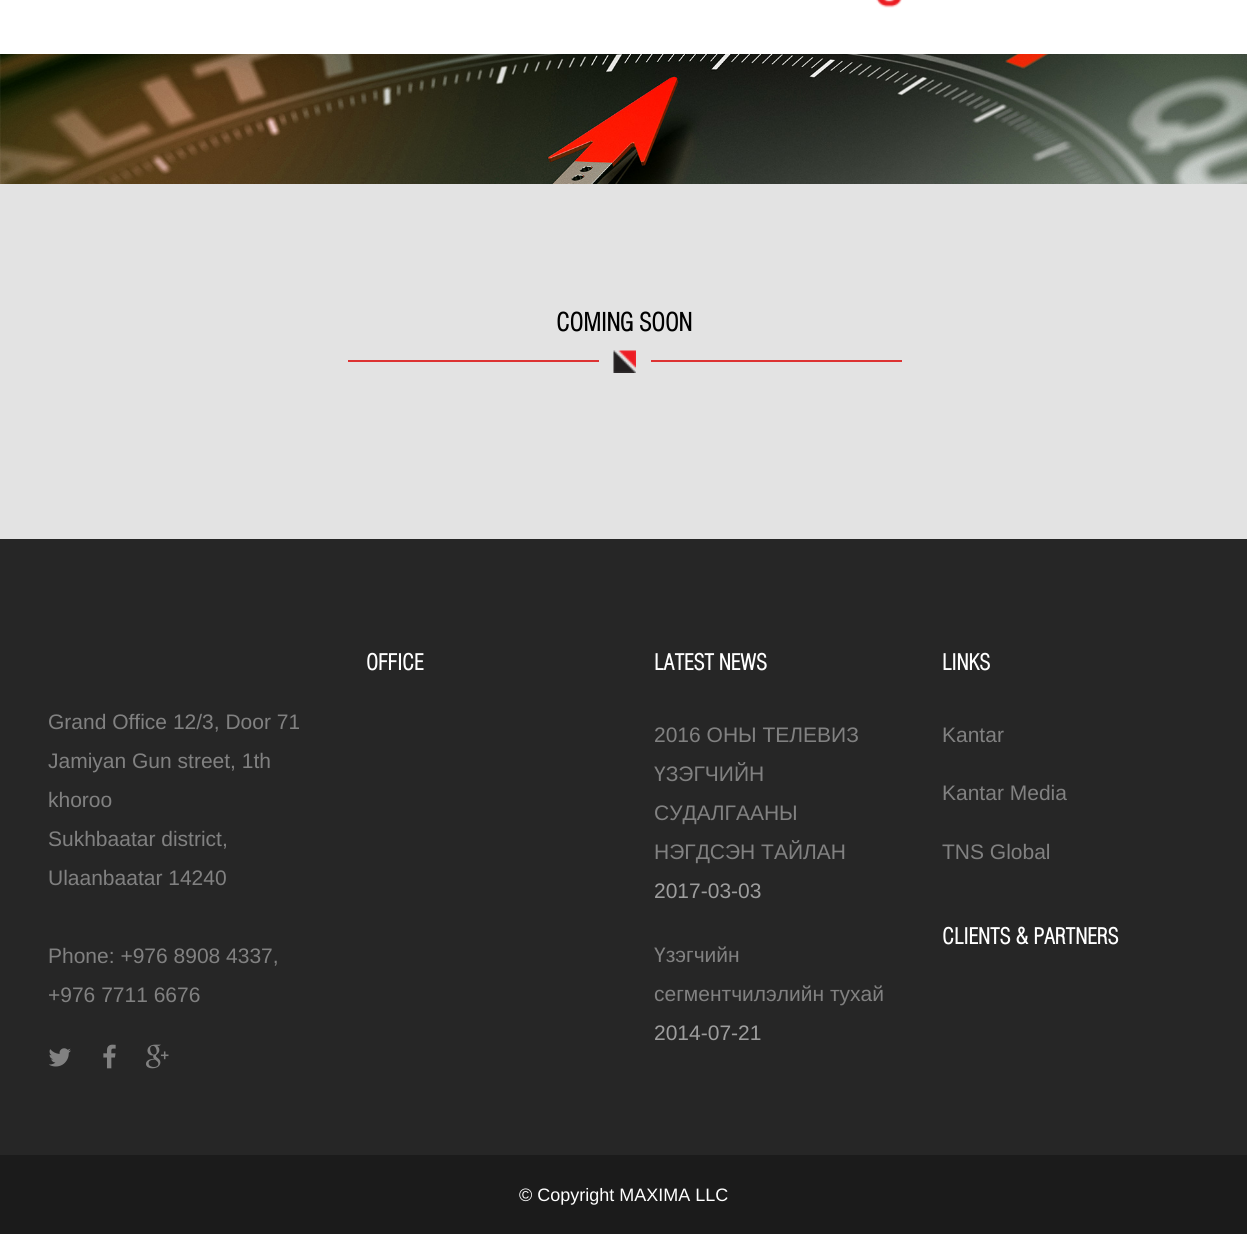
#include <cairo.h>
#include <math.h>
#include <stddef.h>

typedef struct { const char *family; double size; int italic, bold; unsigned color; } style_t;
static cairo_t *ctx;

static void ink(unsigned color) {
    cairo_set_source_rgb(ctx, (color >> 16) / 255.0, (color >> 8 & 255) / 255.0, (color & 255) / 255.0);
}

static void write(double x, double y, const char *s, const style_t *st) {
    cairo_select_font_face(ctx, st->family, st->italic ? CAIRO_FONT_SLANT_ITALIC : CAIRO_FONT_SLANT_NORMAL,
        st->bold ? CAIRO_FONT_WEIGHT_BOLD : CAIRO_FONT_WEIGHT_NORMAL);
    cairo_set_font_size(ctx, st->size);
    ink(st->color);
    cairo_move_to(ctx, x, y);
    cairo_show_text(ctx, s);
}

static void block(double x, double y, double w, double h, unsigned color) {
    ink(color);
    cairo_rectangle(ctx, x, y, w, h);
    cairo_fill(ctx);
}

static void paste(const char *path, double x, double y, double w, double h) {
    cairo_surface_t *image = cairo_image_surface_create_from_png(path);
    cairo_save(ctx);
    cairo_set_source_surface(ctx, image, x, y);
    cairo_rectangle(ctx, x, y, w, h);
    cairo_fill(ctx);
    cairo_restore(ctx);
    cairo_surface_destroy(image);
}

static const style_t s1 = {"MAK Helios", 25.5, 0, 1, 0x000000};
static const style_t s2 = {"Liberation Sans", 21, 0, 0, 0x818181};
static const style_t s3 = {"MAK Helios", 22.5, 0, 1, 0xffffff};
static const style_t s4 = {"Liberation Sans", 21, 0, 0, 0x9d9d9d};
static const style_t s5 = {"Liberation Sans", 18, 0, 0, 0xffffff};

int main(void) {
    cairo_surface_t *surface = cairo_image_surface_create(CAIRO_FORMAT_RGB24, 1247, 1234);
    ctx = cairo_create(surface);
    cairo_font_options_t *options = cairo_font_options_create();
    cairo_font_options_set_hint_metrics(options, CAIRO_HINT_METRICS_OFF);
    cairo_font_options_set_hint_style(options, CAIRO_HINT_STYLE_NONE);
    cairo_set_font_options(ctx, options);
    cairo_set_miter_limit(ctx, 4);
    ink(0xe3e3e3);
    cairo_paint(ctx);
    block(0, 0, 1247, 54, 0xffffff);
    paste("pic1.png", 876, 0, 26, 8);
    paste("pic2.png", 0, 54, 1247, 130);
    write(556, 331, "COMING SOON", &s1);
    block(348, 360, 251, 2, 0xdd3333);
    paste("pic3.png", 613, 350, 23, 23);
    block(651, 360, 251, 2, 0xdd3333);
    block(0, 539, 1247, 616, 0x262626);
    write(48, 729, "Grand Office 12/3, Door 71", &s2);
    write(48, 768, "Jamiyan Gun street, 1th", &s2);
    write(48, 807, "khoroo", &s2);
    write(48, 846, "Sukhbaatar district,", &s2);
    write(48, 885, "Ulaanbaatar 14240", &s2);
    write(48, 963, "Phone: +976 8908 4337,", &s2);
    write(48, 1002, "+976 7711 6676", &s2);
    paste("pic4.png", 49, 1048, 22, 19);
    paste("pic5.png", 103, 1044, 13, 25);
    paste("pic6.png", 146, 1044, 23, 25);
    write(366, 670, "OFFICE", &s3);
    write(654, 670, "LATEST NEWS", &s3);
    write(654, 742, "2016 ОНЫ ТЕЛЕВИЗ", &s2);
    write(654, 781, "ҮЗЭГЧИЙН", &s2);
    write(654, 820, "СУДАЛГААНЫ", &s2);
    write(654, 859, "НЭГДСЭН ТАЙЛАН", &s2);
    write(654, 898, "2017-03-03", &s4);
    write(654, 962, "Үзэгчийн", &s2);
    write(654, 1001, "сегментчилэлийн тухай", &s2);
    write(654, 1040, "2014-07-21", &s4);
    write(942, 670, "LINKS", &s3);
    write(942, 742, "Kantar", &s2);
    write(942, 800, "Kantar Media", &s2);
    write(942, 859, "TNS Global", &s2);
    write(942, 944, "CLIENTS & PARTNERS", &s3);
    block(0, 1155, 1247, 79, 0x1b1b1b);
    write(519, 1201, "© Copyright MAXIMA LLC", &s5);
    cairo_surface_write_to_png(surface, "screenshot.png");
    cairo_font_options_destroy(options);
    cairo_destroy(ctx);
    cairo_surface_destroy(surface);
    return 0;
}
